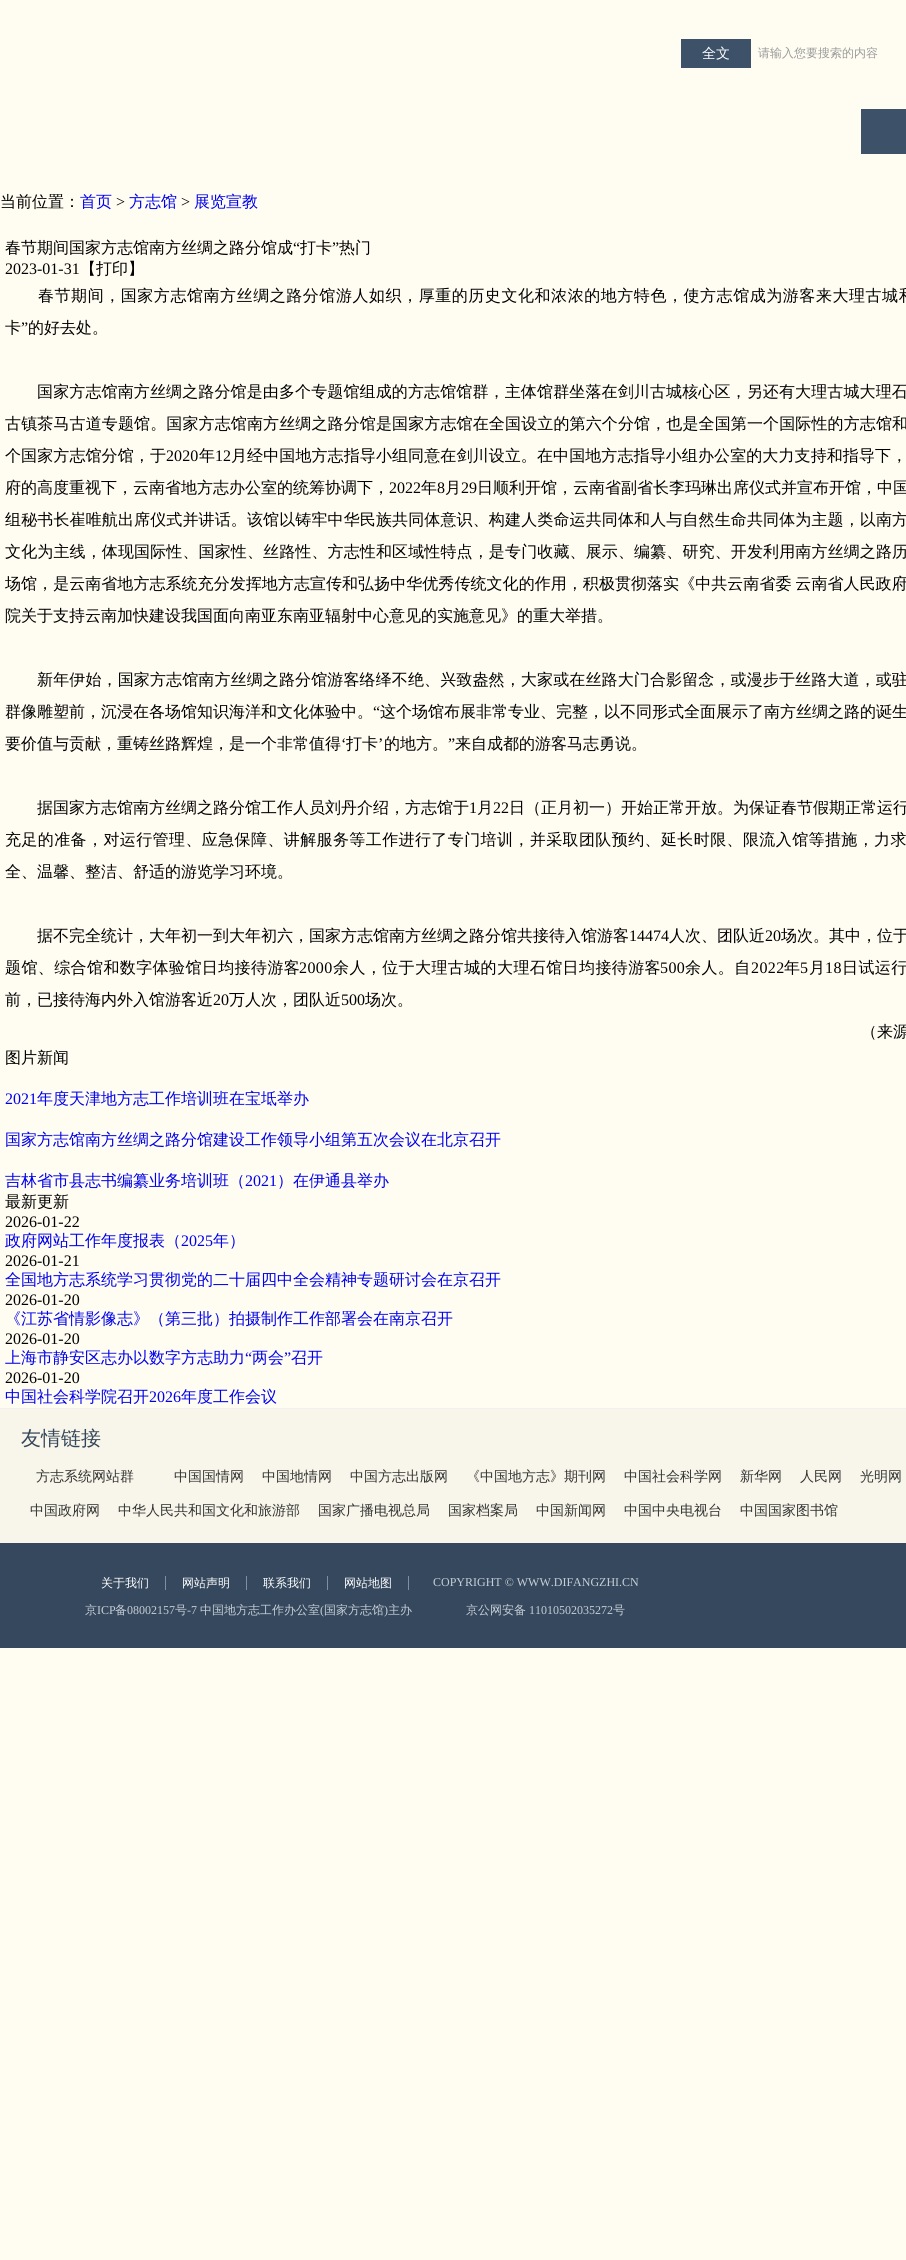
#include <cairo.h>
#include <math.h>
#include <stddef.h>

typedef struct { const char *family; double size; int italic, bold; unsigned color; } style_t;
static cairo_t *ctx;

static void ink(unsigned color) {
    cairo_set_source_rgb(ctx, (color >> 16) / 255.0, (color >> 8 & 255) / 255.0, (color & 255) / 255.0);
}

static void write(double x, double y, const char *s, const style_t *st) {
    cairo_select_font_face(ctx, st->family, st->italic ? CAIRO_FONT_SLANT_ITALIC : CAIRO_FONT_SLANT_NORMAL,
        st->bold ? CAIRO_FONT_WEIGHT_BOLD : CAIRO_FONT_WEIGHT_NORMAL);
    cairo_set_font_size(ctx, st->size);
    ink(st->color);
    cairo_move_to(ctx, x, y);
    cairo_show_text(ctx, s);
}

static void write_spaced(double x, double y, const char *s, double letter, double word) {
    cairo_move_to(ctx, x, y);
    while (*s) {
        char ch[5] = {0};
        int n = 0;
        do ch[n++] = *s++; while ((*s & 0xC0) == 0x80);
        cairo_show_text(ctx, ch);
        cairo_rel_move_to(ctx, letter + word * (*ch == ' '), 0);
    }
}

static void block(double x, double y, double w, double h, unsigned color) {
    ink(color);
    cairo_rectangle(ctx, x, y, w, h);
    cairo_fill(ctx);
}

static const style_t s1 = {"WenQuanYi Zen Hei Medium", 14, 0, 0, 0xffffff};
static const style_t s2 = {"WenQuanYi Zen Hei Medium", 12, 0, 0, 0x999999};
static const style_t s3 = {"WenQuanYi Zen Hei Medium", 16, 0, 0, 0x000000};
static const style_t s4 = {"WenQuanYi Zen Hei Medium", 16, 0, 0, 0x0000ee};
static const style_t s5 = {"Liberation Serif", 16, 0, 0, 0x000000};
static const style_t s6 = {"Liberation Serif", 16, 0, 0, 0x0000ee};
static const style_t s7 = {"WenQuanYi Zen Hei Medium", 20, 0, 0, 0x34465a};
static const style_t s8 = {"WenQuanYi Zen Hei Medium", 14, 0, 0, 0x333333};
static const style_t s9 = {"WenQuanYi Zen Hei Medium", 12, 0, 0, 0xffffff};
static const style_t s10 = {"Liberation Serif", 12, 0, 0, 0xc7ced7};
static const style_t s11 = {"WenQuanYi Zen Hei Medium", 12, 0, 0, 0xc7ced7};

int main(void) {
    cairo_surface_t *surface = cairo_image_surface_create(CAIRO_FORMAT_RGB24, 906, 2260);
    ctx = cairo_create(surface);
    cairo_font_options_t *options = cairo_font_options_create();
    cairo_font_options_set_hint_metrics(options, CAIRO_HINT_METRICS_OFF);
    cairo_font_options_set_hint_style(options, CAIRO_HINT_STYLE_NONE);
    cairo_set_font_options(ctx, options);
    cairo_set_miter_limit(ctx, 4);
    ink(0xfffdf2);
    cairo_paint(ctx);
    block(681, 39, 70, 29, 0x3d5269);
    write(702, 58, "全文", &s1);
    write(758, 57, "请输入您要搜索的内容", &s2);
    block(861, 109, 45, 45, 0x3d5269);
    write(0, 207, "当前位置：", &s3);
    write(80, 207, "首页", &s4);
    write(116, 207, ">", &s5);
    write(129, 207, "方志馆", &s4);
    write(181, 207, ">", &s5);
    write(194, 207, "展览宣教", &s4);
    write(5, 253, "春节期间国家方志馆南方丝绸之路分馆成", &s3);
    write(293, 253, "“", &s5);
    write(300, 253, "打卡", &s3);
    write(332, 253, "”", &s5);
    write(339, 253, "热门", &s3);
    write(5, 274, "2023-01-31", &s5);
    write(80, 274, "【打印】", &s3);
    write_spaced(38, 301, "春节期间，国家方志馆南方丝绸之路分馆游人如织，厚重的历史文化和浓浓的地方特色，使方志馆成为游客来大理古城和", 0.55, 0);
    write(5, 333, "卡", &s3);
    write(21, 333, "”", &s5);
    write(28, 333, "的好去处。", &s3);
    write_spaced(37, 397, "国家方志馆南方丝绸之路分馆是由多个专题馆组成的方志馆馆群，主体馆群坐落在剑川古城核心区，另还有大理古城大理石", 0.13, 0);
    write_spaced(5, 429, "古镇茶马古道专题馆。国家方志馆南方丝绸之路分馆是国家方志馆在全国设立的第六个分馆，也是全国第一个国际性的方志馆和", 0.13, 0);
    write_spaced(5, 461, "个国家方志馆分馆，于", 0.1, 0);
    cairo_select_font_face(ctx, "Liberation Serif", CAIRO_FONT_SLANT_NORMAL, CAIRO_FONT_WEIGHT_NORMAL);
    write_spaced(166, 461, "2020", 0.1, 0);
    cairo_select_font_face(ctx, "WenQuanYi Zen Hei Medium", CAIRO_FONT_SLANT_NORMAL, CAIRO_FONT_WEIGHT_NORMAL);
    write_spaced(199, 461, "年", 0.1, 0);
    cairo_select_font_face(ctx, "Liberation Serif", CAIRO_FONT_SLANT_NORMAL, CAIRO_FONT_WEIGHT_NORMAL);
    write_spaced(215, 461, "12", 0.1, 0);
    cairo_select_font_face(ctx, "WenQuanYi Zen Hei Medium", CAIRO_FONT_SLANT_NORMAL, CAIRO_FONT_WEIGHT_NORMAL);
    write_spaced(231, 461, "月经中国地方志指导小组同意在剑川设立。在中国地方志指导小组办公室的大力支持和指导下，", 0.1, 0);
    write(5, 493, "府的高度重视下，云南省地方志办公室的统筹协调下，", &s3);
    write(389, 493, "2022", &s5);
    write(421, 493, "年", &s3);
    write(437, 493, "8", &s5);
    write(445, 493, "月", &s3);
    write(461, 493, "29", &s5);
    write(477, 493, "日顺利开馆，云南省副省长李玛琳出席仪式并宣布开馆，中国", &s3);
    write_spaced(5, 525, "组秘书长崔唯航出席仪式并讲话。该馆以铸牢中华民族共同体意识、构建人类命运共同体和人与自然生命共同体为主题，以南方", 0.13, 0);
    write_spaced(5, 557, "文化为主线，体现国际性、国家性、丝路性、方志性和区域性特点，是专门收藏、展示、编纂、研究、开发利用南方丝绸之路历", 0.13, 0);
    write_spaced(5, 589, "场馆，是云南省地方志系统充分发挥地方志宣传和弘扬中华优秀传统文化的作用，积极贯彻落实《中共云南省委 云南省人民政府", 0.05, -1);
    write(5, 621, "院关于支持云南加快建设我国面向南亚东南亚辐射中心意见的实施意见》的重大举措。", &s3);
    write_spaced(37, 685, "新年伊始，国家方志馆南方丝绸之路分馆游客络绎不绝、兴致盎然，大家或在丝路大门合影留念，或漫步于丝路大道，或驻", 0.13, 0);
    write(5, 717, "群像雕塑前，沉浸在各场馆知识海洋和文化体验中。", &s3);
    write(373, 717, "“", &s5);
    write(380, 717, "这个场馆布展非常专业、完整，以不同形式全面展示了南方丝绸之路的诞生", &s3);
    write(5, 749, "要价值与贡献，重铸丝路辉煌，是一个非常值得", &s3);
    write(341, 749, "‘", &s5);
    write(346, 749, "打卡", &s3);
    write(378, 749, "’", &s5);
    write(384, 749, "的地方。", &s3);
    write(448, 749, "”", &s5);
    write(455, 749, "来自成都的游客马志勇说。", &s3);
    write(37, 813, "据国家方志馆南方丝绸之路分馆工作人员刘丹介绍，方志馆于", &s3);
    write(469, 813, "1", &s5);
    write(477, 813, "月", &s3);
    write(493, 813, "22", &s5);
    write(509, 813, "日（正月初一）开始正常开放。为保证春节假期正常运行", &s3);
    write_spaced(5, 845, "充足的准备，对运行管理、应急保障、讲解服务等工作进行了专门培训，并采取团队预约、延长时限、限流入馆等措施，力求", 0.4, 0);
    write(5, 877, "全、温馨、整洁、舒适的游览学习环境。", &s3);
    write(37, 941, "据不完全统计，大年初一到大年初六，国家方志馆南方丝绸之路分馆共接待入馆游客", &s3);
    write(629, 941, "14474", &s5);
    write(669, 941, "人次、团队近", &s3);
    write(765, 941, "20", &s5);
    write(781, 941, "场次。其中，位于", &s3);
    write_spaced(5, 973, "题馆、综合馆和数字体验馆日均接待游客", 0.4, 0);
    cairo_select_font_face(ctx, "Liberation Serif", CAIRO_FONT_SLANT_NORMAL, CAIRO_FONT_WEIGHT_NORMAL);
    write_spaced(299, 973, "2000", 0.4, 0);
    cairo_select_font_face(ctx, "WenQuanYi Zen Hei Medium", CAIRO_FONT_SLANT_NORMAL, CAIRO_FONT_WEIGHT_NORMAL);
    write_spaced(333, 973, "余人，位于大理古城的大理石馆日均接待游客", 0.4, 0);
    cairo_select_font_face(ctx, "Liberation Serif", CAIRO_FONT_SLANT_NORMAL, CAIRO_FONT_WEIGHT_NORMAL);
    write_spaced(660, 973, "500", 0.4, 0);
    cairo_select_font_face(ctx, "WenQuanYi Zen Hei Medium", CAIRO_FONT_SLANT_NORMAL, CAIRO_FONT_WEIGHT_NORMAL);
    write_spaced(685, 973, "余人。自", 0.4, 0);
    cairo_select_font_face(ctx, "Liberation Serif", CAIRO_FONT_SLANT_NORMAL, CAIRO_FONT_WEIGHT_NORMAL);
    write_spaced(751, 973, "2022", 0.4, 0);
    cairo_select_font_face(ctx, "WenQuanYi Zen Hei Medium", CAIRO_FONT_SLANT_NORMAL, CAIRO_FONT_WEIGHT_NORMAL);
    write_spaced(784, 973, "年", 0.4, 0);
    cairo_select_font_face(ctx, "Liberation Serif", CAIRO_FONT_SLANT_NORMAL, CAIRO_FONT_WEIGHT_NORMAL);
    write_spaced(800, 973, "5", 0.4, 0);
    cairo_select_font_face(ctx, "WenQuanYi Zen Hei Medium", CAIRO_FONT_SLANT_NORMAL, CAIRO_FONT_WEIGHT_NORMAL);
    write_spaced(809, 973, "月", 0.4, 0);
    cairo_select_font_face(ctx, "Liberation Serif", CAIRO_FONT_SLANT_NORMAL, CAIRO_FONT_WEIGHT_NORMAL);
    write_spaced(825, 973, "18", 0.4, 0);
    cairo_select_font_face(ctx, "WenQuanYi Zen Hei Medium", CAIRO_FONT_SLANT_NORMAL, CAIRO_FONT_WEIGHT_NORMAL);
    write_spaced(842, 973, "日试运行", 0.4, 0);
    write(5, 1005, "前，已接待海内外入馆游客近", &s3);
    write(213, 1005, "20", &s5);
    write(229, 1005, "万人次，团队近", &s3);
    write(341, 1005, "500", &s5);
    write(365, 1005, "场次。", &s3);
    write(861, 1037, "（来源", &s3);
    write(5, 1063, "图片新闻", &s3);
    write(5, 1104, "2021", &s6);
    write(37, 1104, "年度天津地方志工作培训班在宝坻举办", &s4);
    write(5, 1145, "国家方志馆南方丝绸之路分馆建设工作领导小组第五次会议在北京召开", &s4);
    write(5, 1186, "吉林省市县志书编纂业务培训班（", &s4);
    write(245, 1186, "2021", &s6);
    write(277, 1186, "）在伊通县举办", &s4);
    write(5, 1207, "最新更新", &s3);
    write(5, 1227, "2026-01-22", &s5);
    write(5, 1246, "政府网站工作年度报表（", &s4);
    write(181, 1246, "2025", &s6);
    write(213, 1246, "年）", &s4);
    write(5, 1266, "2026-01-21", &s5);
    write(5, 1285, "全国地方志系统学习贯彻党的二十届四中全会精神专题研讨会在京召开", &s4);
    write(5, 1305, "2026-01-20", &s5);
    write(5, 1324, "《江苏省情影像志》（第三批）拍摄制作工作部署会在南京召开", &s4);
    write(5, 1344, "2026-01-20", &s5);
    write(5, 1363, "上海市静安区志办以数字方志助力", &s4);
    write(245, 1363, "“", &s6);
    write(252, 1363, "两会", &s4);
    write(284, 1363, "”", &s6);
    write(291, 1363, "召开", &s4);
    write(5, 1383, "2026-01-20", &s5);
    write(5, 1402, "中国社会科学院召开", &s4);
    write(149, 1402, "2026", &s6);
    write(181, 1402, "年度工作会议", &s4);
    block(0, 1409, 906, 134, 0xf8f6ea);
    block(0, 1408, 906, 1, 0xf0f0f0);
    write(21, 1445, "友情链接", &s7);
    write(36, 1481, "方志系统网站群", &s8);
    write(174, 1481, "中国国情网", &s8);
    write(262, 1481, "中国地情网", &s8);
    write(350, 1481, "中国方志出版网", &s8);
    write(466, 1481, "《中国地方志》期刊网", &s8);
    write(624, 1481, "中国社会科学网", &s8);
    write(740, 1481, "新华网", &s8);
    write(800, 1481, "人民网", &s8);
    write(860, 1481, "光明网", &s8);
    write(30, 1515, "中国政府网", &s8);
    write(118, 1515, "中华人民共和国文化和旅游部", &s8);
    write(318, 1515, "国家广播电视总局", &s8);
    write(448, 1515, "国家档案局", &s8);
    write(536, 1515, "中国新闻网", &s8);
    write(624, 1515, "中国中央电视台", &s8);
    write(740, 1515, "中国国家图书馆", &s8);
    block(0, 1543, 906, 105, 0x35485d);
    write(101, 1587, "关于我们", &s9);
    block(165, 1576, 1, 14, 0x7e8fa1);
    write(182, 1587, "网站声明", &s9);
    block(246, 1576, 1, 14, 0x7e8fa1);
    write(263, 1587, "联系我们", &s9);
    block(327, 1576, 1, 14, 0x7e8fa1);
    write(344, 1587, "网站地图", &s9);
    block(408, 1576, 1, 14, 0x7e8fa1);
    write(433, 1586, "COPYRIGHT © WWW.DIFANGZHI.CN", &s10);
    write(85, 1614, "京", &s11);
    write(97, 1614, "ICP", &s10);
    write(115, 1614, "备", &s11);
    write(127, 1614, "08002157", &s10);
    write(175, 1614, "号", &s11);
    write(187, 1614, "-7", &s10);
    write(200, 1614, "中国地方志工作办公室", &s11);
    write(320, 1614, "(", &s10);
    write(324, 1614, "国家方志馆", &s11);
    write(384, 1614, ")", &s10);
    write(388, 1614, "主办", &s11);
    write(466, 1614, "京公网安备", &s11);
    write(529, 1614, "11010502035272", &s10);
    write(613, 1614, "号", &s11);
    cairo_surface_write_to_png(surface, "screenshot.png");
    cairo_font_options_destroy(options);
    cairo_destroy(ctx);
    cairo_surface_destroy(surface);
    return 0;
}
